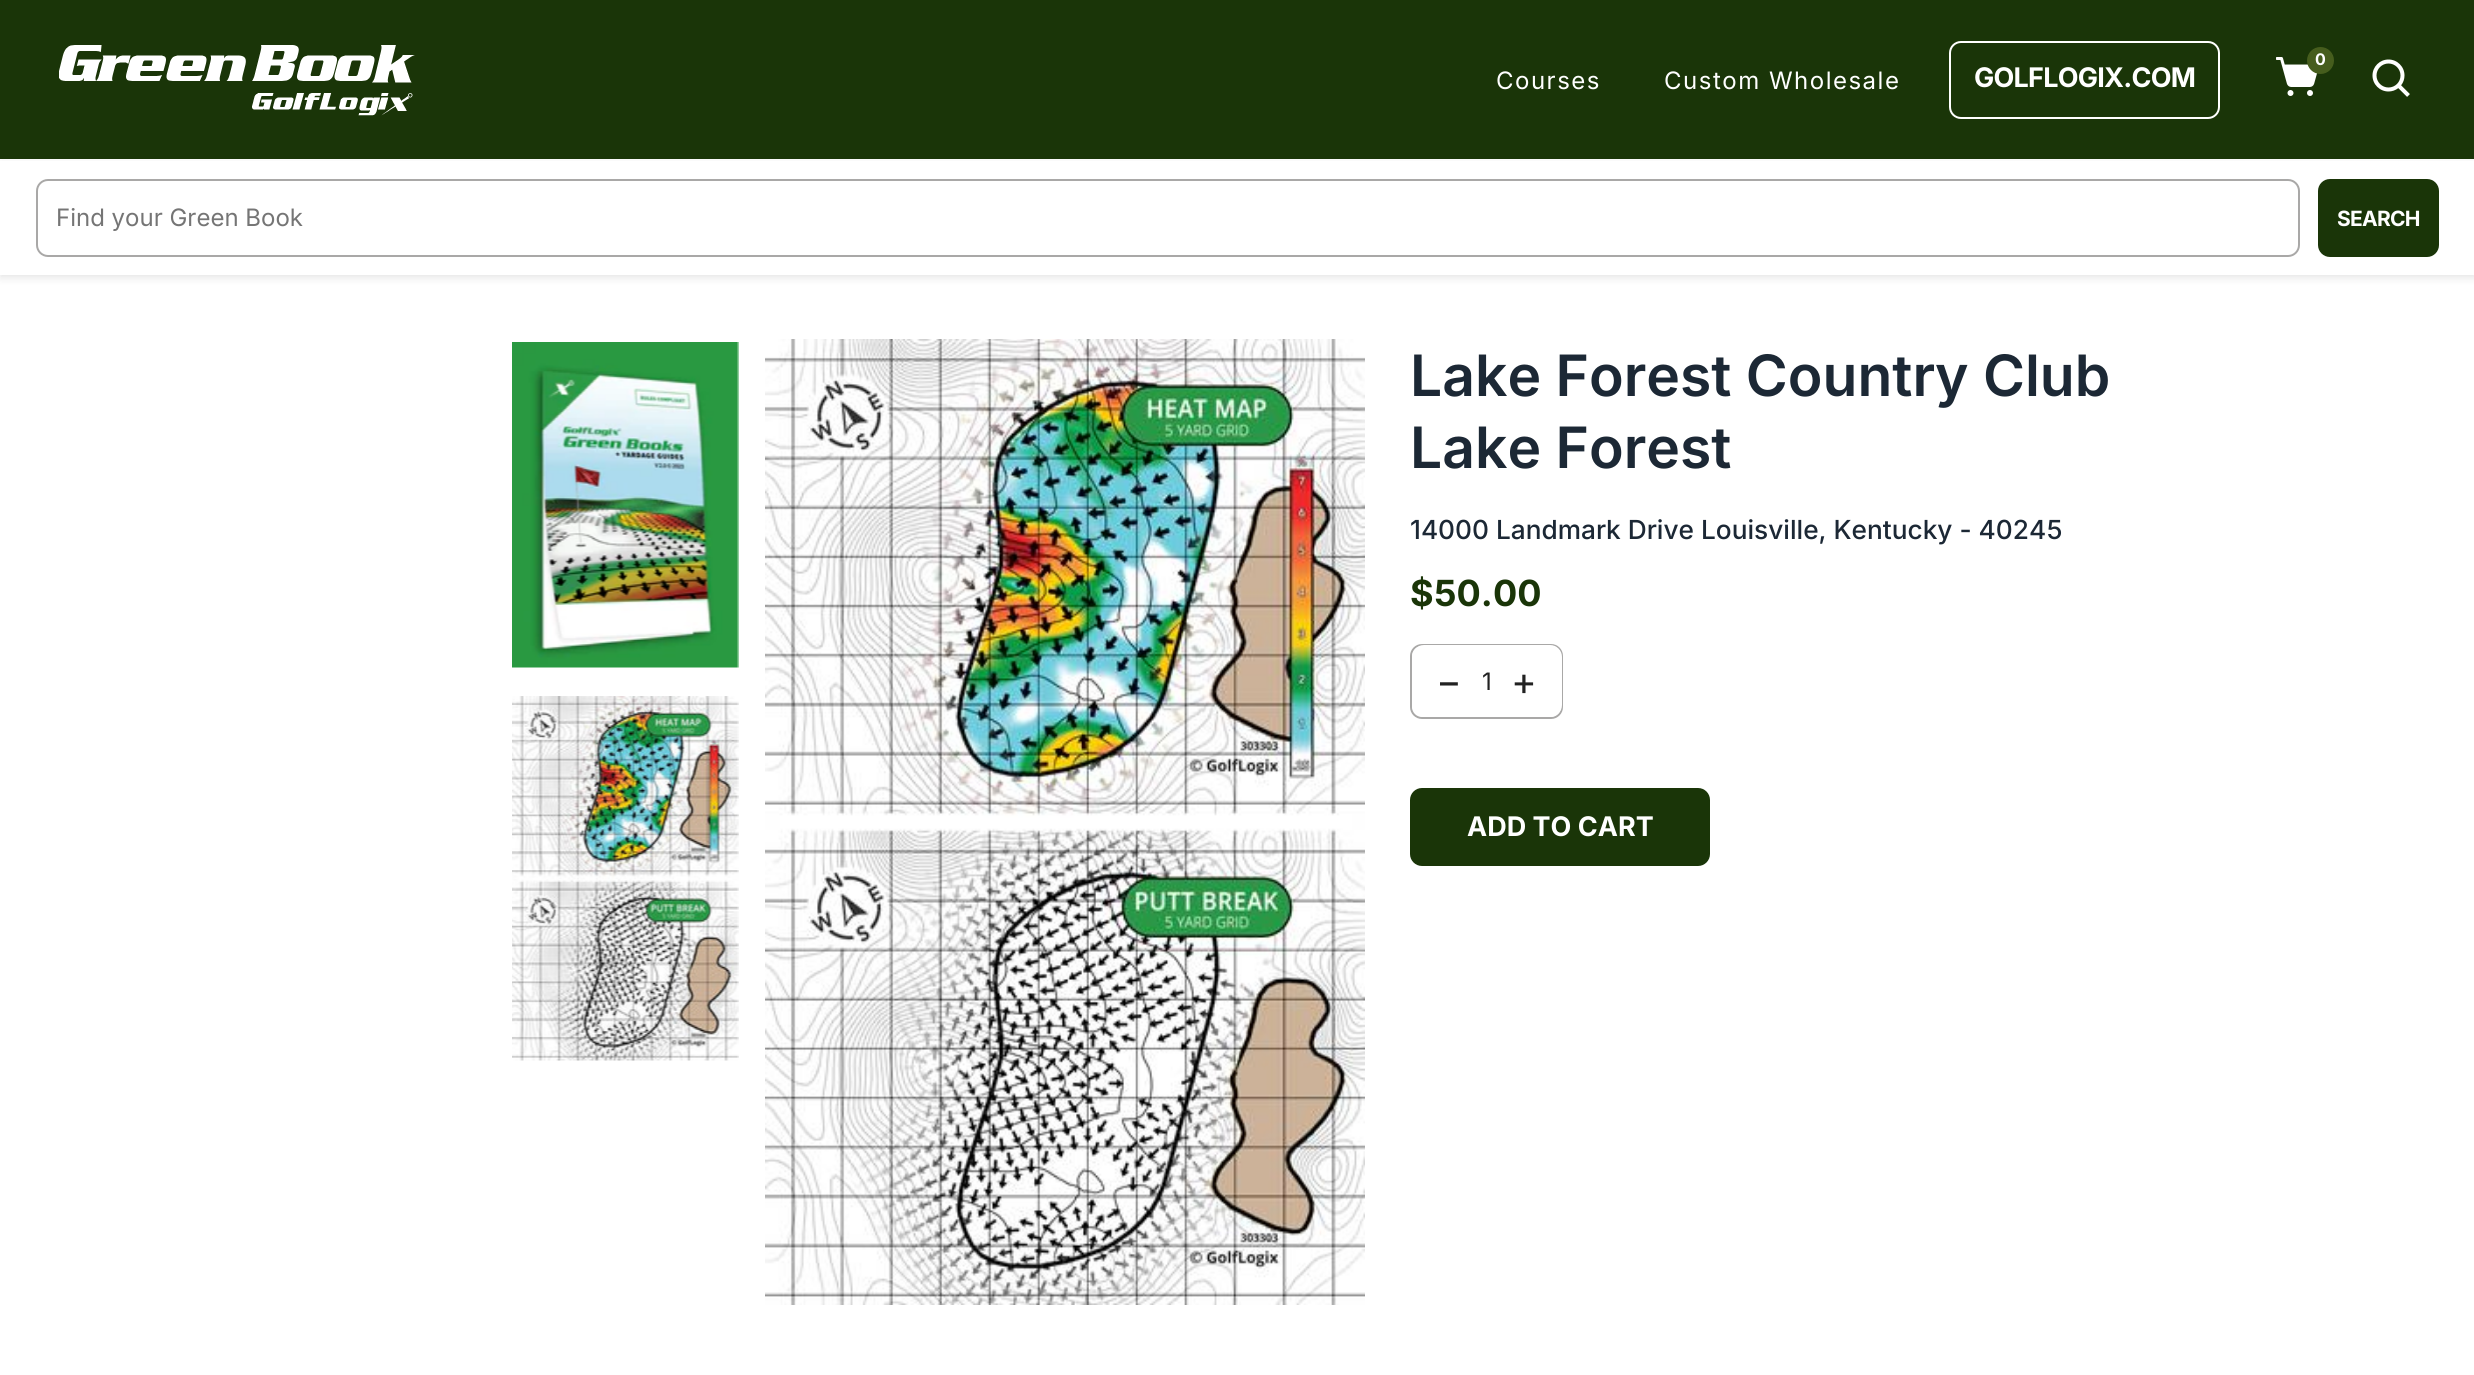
#include <cairo.h>
#include <math.h>
#include <stddef.h>

typedef struct { const char *family; double size; int italic, bold; unsigned color; } style_t;
static cairo_t *ctx;

static void ink(unsigned color) {
    cairo_set_source_rgb(ctx, (color >> 16) / 255.0, (color >> 8 & 255) / 255.0, (color & 255) / 255.0);
}

static void write(double x, double y, const char *s, const style_t *st) {
    cairo_select_font_face(ctx, st->family, st->italic ? CAIRO_FONT_SLANT_ITALIC : CAIRO_FONT_SLANT_NORMAL,
        st->bold ? CAIRO_FONT_WEIGHT_BOLD : CAIRO_FONT_WEIGHT_NORMAL);
    cairo_set_font_size(ctx, st->size);
    ink(st->color);
    cairo_move_to(ctx, x, y);
    cairo_show_text(ctx, s);
}

static void write_spaced(double x, double y, const char *s, double letter, double word) {
    cairo_move_to(ctx, x, y);
    while (*s) {
        char ch[5] = {0};
        int n = 0;
        do ch[n++] = *s++; while ((*s & 0xC0) == 0x80);
        cairo_show_text(ctx, ch);
        cairo_rel_move_to(ctx, letter + word * (*ch == ' '), 0);
    }
}

static void block(double x, double y, double w, double h, unsigned color) {
    ink(color);
    cairo_rectangle(ctx, x, y, w, h);
    cairo_fill(ctx);
}

static void round_path(double x, double y, double w, double h, double r) {
    cairo_new_sub_path(ctx);
    cairo_arc(ctx, x + w - r, y + h - r, r, 0, M_PI / 2);
    cairo_arc(ctx, x + r, y + h - r, r, M_PI / 2, M_PI);
    cairo_arc(ctx, x + r, y + r, r, M_PI, 1.5 * M_PI);
    cairo_arc(ctx, x + w - r, y + r, r, 1.5 * M_PI, 2 * M_PI);
    cairo_close_path(ctx);
}

static void blur_box(double x, double y, double w, double h, double r, double blur, double alpha) {
    cairo_push_group_with_content(ctx, CAIRO_CONTENT_ALPHA);
    cairo_set_operator(ctx, CAIRO_OPERATOR_SOURCE);
    for (int i = 15; i >= -15 && fmin(w, h) + blur * i / 3 > 0; i -= 2) {
        double e = blur * i / 6;
        cairo_set_source_rgba(ctx, 0, 0, 0, alpha * erfc((i - 1) / 8.5) / 2);
        round_path(x - e, y - e, w + 2 * e, h + 2 * e, fmax(0, fmin(r + e + blur * .6, fmin(w, h) / 2 + e)));
        cairo_fill(ctx);
    }
    cairo_pattern_t *soft = cairo_pop_group(ctx);
    cairo_mask(ctx, soft);
    cairo_pattern_destroy(soft);
}

static void paste(const char *path, double x, double y, double w, double h) {
    cairo_surface_t *image = cairo_image_surface_create_from_png(path);
    cairo_save(ctx);
    cairo_set_source_surface(ctx, image, x, y);
    cairo_rectangle(ctx, x, y, w, h);
    cairo_fill(ctx);
    cairo_restore(ctx);
    cairo_surface_destroy(image);
}

static const style_t s1 = {"Inter", 16, 0, 1, 0xffffff};
static const style_t s2 = {"Inter", 24, 0, 0, 0x757575};
static const style_t s3 = {"Inter SemiBold", 57, 0, 0, 0x1c2835};
static const style_t s4 = {"Inter Medium", 26.25, 0, 0, 0x1c2835};
static const style_t s5 = {"Inter", 36, 0, 1, 0x1a3508};
static const style_t s6 = {"Inter", 39, 0, 0, 0x222222};
static const style_t s7 = {"Inter", 24, 0, 0, 0x222222};
static const style_t s8 = {"Inter", 27, 0, 1, 0xffffff};

int main(void) {
    cairo_surface_t *surface = cairo_image_surface_create(CAIRO_FORMAT_RGB24, 2474, 1375);
    ctx = cairo_create(surface);
    cairo_font_options_t *options = cairo_font_options_create();
    cairo_font_options_set_hint_metrics(options, CAIRO_HINT_METRICS_OFF);
    cairo_font_options_set_hint_style(options, CAIRO_HINT_STYLE_NONE);
    cairo_set_font_options(ctx, options);
    cairo_set_miter_limit(ctx, 4);
    ink(0xffffff);
    cairo_paint(ctx);
    block(0, 0, 2474, 159, 0x1a3508);
    paste("pic1.png", 59, 45, 356, 71);
    cairo_select_font_face(ctx, "Inter", CAIRO_FONT_SLANT_NORMAL, CAIRO_FONT_WEIGHT_NORMAL);
    cairo_set_font_size(ctx, 24);
    ink(0xffffff);
    write_spaced(1496, 89, "Courses", 1.5, 0);
    write_spaced(1664, 89, "Custom Wholesale", 1.5, 0);
    round_path(1950, 42, 269, 76, 11);
    cairo_stroke(ctx);
    cairo_select_font_face(ctx, "Inter", CAIRO_FONT_SLANT_NORMAL, CAIRO_FONT_WEIGHT_BOLD);
    cairo_set_font_size(ctx, 27);
    write_spaced(1974, 87, "GOLFLOGIX.COM", -0.75, 0);
    paste("pic2.png", 2276, 57, 42, 39);
    ink(0x465d1d);
    cairo_arc(ctx, 2320.5, 60.5, 13.5, 0, 2 * M_PI);
    cairo_fill(ctx);
    write(2315, 65, "0", &s1);
    paste("pic3.png", 2372, 59, 38, 38);
    ink(0x000000);
    blur_box(0, 164, 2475, 114, 0, 4, 0.1);
    block(0, 161, 2474, 114, 0xffffff);
    round_path(37, 180, 2262, 76, 11);
    ink(0xa9a8a7);
    cairo_stroke(ctx);
    write(56, 226, "Find your Green Book", &s2);
    ink(0x1a3508);
    round_path(2318, 179, 121, 78, 12);
    cairo_fill(ctx);
    cairo_select_font_face(ctx, "Inter", CAIRO_FONT_SLANT_NORMAL, CAIRO_FONT_WEIGHT_BOLD);
    cairo_set_font_size(ctx, 21);
    ink(0xffffff);
    write_spaced(2337, 226, "SEARCH", -0.75, 0);
    paste("pic4.png", 512, 342, 227, 326);
    paste("pic5.png", 512, 696, 227, 365);
    paste("pic6.png", 765, 339, 600, 966);
    write(1410, 396, "Lake Forest Country Club", &s3);
    write(1410, 468, "Lake Forest", &s3);
    write(1410, 539, "14000 Landmark Drive Louisville, Kentucky - 40245", &s4);
    write(1410, 606, "$50.00", &s5);
    round_path(1411, 645, 151, 73, 11);
    ink(0xa9a8a7);
    cairo_stroke(ctx);
    ink(0xffffff);
    round_path(1412, 645, 150, 72, 12);
    cairo_fill(ctx);
    write(1436, 695, "−", &s6);
    write(1482, 690, "1", &s7);
    write(1511, 695, "+", &s6);
    ink(0x1a3508);
    round_path(1410, 788, 300, 78, 12);
    cairo_fill(ctx);
    write(1467, 836, "ADD TO CART", &s8);
    cairo_surface_write_to_png(surface, "screenshot.png");
    cairo_font_options_destroy(options);
    cairo_destroy(ctx);
    cairo_surface_destroy(surface);
    return 0;
}
